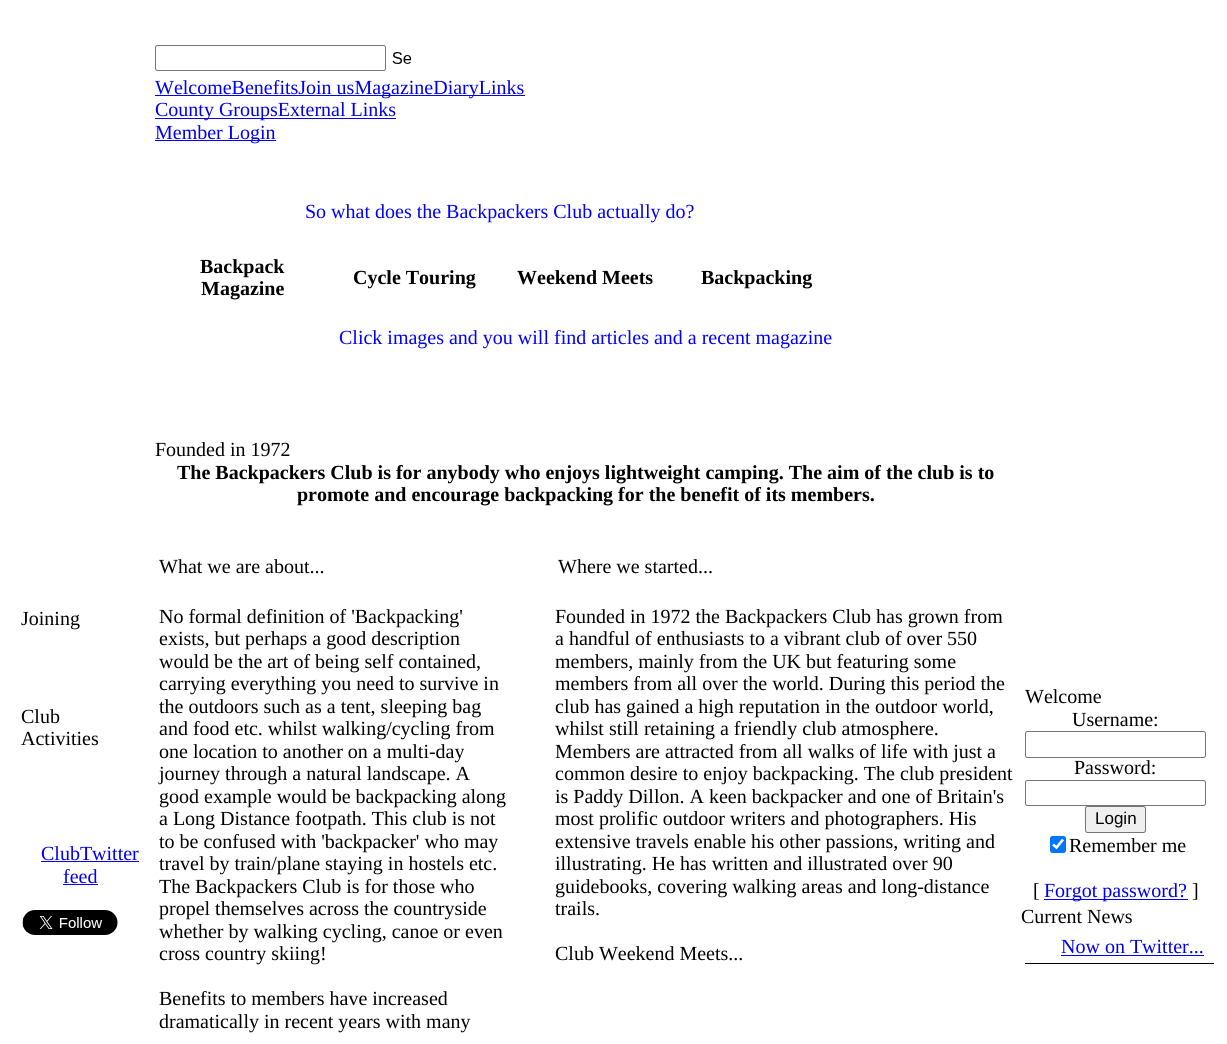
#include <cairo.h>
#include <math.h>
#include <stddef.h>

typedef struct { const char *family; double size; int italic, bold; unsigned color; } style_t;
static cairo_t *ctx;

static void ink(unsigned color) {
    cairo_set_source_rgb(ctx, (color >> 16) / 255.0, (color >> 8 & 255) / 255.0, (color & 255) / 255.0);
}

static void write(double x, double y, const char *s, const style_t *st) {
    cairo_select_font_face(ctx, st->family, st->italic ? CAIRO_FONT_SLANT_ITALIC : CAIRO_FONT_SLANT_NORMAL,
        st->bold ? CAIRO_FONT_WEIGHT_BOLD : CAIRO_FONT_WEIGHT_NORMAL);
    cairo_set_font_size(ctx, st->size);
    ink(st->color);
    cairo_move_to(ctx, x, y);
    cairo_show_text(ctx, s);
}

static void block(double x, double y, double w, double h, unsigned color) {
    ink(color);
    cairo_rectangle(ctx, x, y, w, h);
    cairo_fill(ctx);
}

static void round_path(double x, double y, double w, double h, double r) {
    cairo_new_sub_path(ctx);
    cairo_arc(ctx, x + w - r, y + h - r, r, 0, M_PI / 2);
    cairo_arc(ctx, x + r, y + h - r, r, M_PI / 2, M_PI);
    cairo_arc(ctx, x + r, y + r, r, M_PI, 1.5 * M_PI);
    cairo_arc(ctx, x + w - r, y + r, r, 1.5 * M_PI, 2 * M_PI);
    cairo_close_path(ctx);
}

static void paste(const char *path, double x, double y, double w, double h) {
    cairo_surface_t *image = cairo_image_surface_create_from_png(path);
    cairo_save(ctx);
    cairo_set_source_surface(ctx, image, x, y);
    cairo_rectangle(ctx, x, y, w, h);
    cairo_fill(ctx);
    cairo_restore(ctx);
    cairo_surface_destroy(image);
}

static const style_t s1 = {"Liberation Serif", 20, 0, 0, 0x000000};
static const style_t s2 = {"Liberation Serif", 20, 0, 0, 0x0000ee};
static const style_t s3 = {"Liberation Serif", 20, 0, 0, 0x0000ff};
static const style_t s4 = {"Liberation Serif", 20, 0, 1, 0x000000};
static const style_t s5 = {"Liberation Sans", 17, 0, 0, 0x000000};

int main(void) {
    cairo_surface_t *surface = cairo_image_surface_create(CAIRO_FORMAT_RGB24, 1227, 1044);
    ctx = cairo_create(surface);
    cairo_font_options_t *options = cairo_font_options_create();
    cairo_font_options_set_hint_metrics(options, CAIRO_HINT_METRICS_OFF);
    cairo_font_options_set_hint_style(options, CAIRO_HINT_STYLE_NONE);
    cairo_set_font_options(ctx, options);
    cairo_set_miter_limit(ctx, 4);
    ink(0xffffff);
    cairo_paint(ctx);
    write(21, 625, "Joining", &s1);
    write(21, 723, "Club", &s1);
    write(21, 745, "Activities", &s1);
    write(41, 860, "ClubTwitter", &s2);
    block(41, 861, 98, 1, 0x0000ee);
    write(63, 883, "feed", &s2);
    block(63, 884, 35, 1, 0x0000ee);
    paste("pic1.png", 22, 910, 96, 25);
    round_path(155.5, 45.5, 230, 25, 2);
    ink(0x767676);
    cairo_set_line_width(ctx, 1);
    cairo_stroke(ctx);
    paste("pic2.png", 392, 52, 20, 12);
    block(155, 95, 324, 1, 0x0000ee);
    write(155, 94, "WelcomeBenefitsJoin usMagazineDiaryLinks", &s2);
    block(479, 95, 46, 1, 0x0000ee);
    block(155, 118, 241, 1, 0x0000ee);
    write(155, 116, "County GroupsExternal Links", &s2);
    block(155, 140, 121, 1, 0x0000ee);
    write(155, 139, "Member Login", &s2);
    write(305, 218, "So what does the Backpackers Club actually do?", &s3);
    write(200, 273, "Backpack", &s4);
    write(201, 295, "Magazine", &s4);
    write(353, 284, "Cycle Touring", &s4);
    write(517, 284, "Weekend Meets", &s4);
    write(701, 284, "Backpacking", &s4);
    write(339, 344, "Click images and you will find articles and a recent magazine", &s3);
    write(155, 456, "Founded in 1972", &s1);
    write(177, 479, "The Backpackers Club is for anybody who enjoys lightweight camping. The aim of the club is to", &s4);
    write(297, 501, "promote and encourage backpacking for the benefit of its members.", &s4);
    write(159, 573, "What we are about...", &s1);
    write(558, 573, "Where we started...", &s1);
    write(159, 623, "No formal definition of 'Backpacking'", &s1);
    write(159, 645, "exists, but perhaps a good description", &s1);
    write(159, 668, "would be the art of being self contained,", &s1);
    write(159, 690, "carrying everything you need to survive in", &s1);
    write(159, 713, "the outdoors such as a tent, sleeping bag", &s1);
    write(159, 735, "and food etc. whilst walking/cycling from", &s1);
    write(159, 758, "one location to another on a multi-day", &s1);
    write(159, 780, "journey through a natural landscape. A", &s1);
    write(159, 803, "good example would be backpacking along", &s1);
    write(159, 825, "a Long Distance footpath. This club is not", &s1);
    write(159, 848, "to be confused with 'backpacker' who may", &s1);
    write(159, 870, "travel by train/plane staying in hostels etc.", &s1);
    write(159, 893, "The Backpackers Club is for those who", &s1);
    write(159, 915, "propel themselves across the countryside", &s1);
    write(159, 938, "whether by walking cycling, canoe or even", &s1);
    write(159, 960, "cross country skiing!", &s1);
    write(159, 1005, "Benefits to members have increased", &s1);
    write(159, 1028, "dramatically in recent years with many", &s1);
    write(555, 623, "Founded in 1972 the Backpackers Club has grown from", &s1);
    write(555, 645, "a handful of enthusiasts to a vibrant club of over 550", &s1);
    write(555, 668, "members, mainly from the UK but featuring some", &s1);
    write(555, 690, "members from all over the world. During this period the", &s1);
    write(555, 713, "club has gained a high reputation in the outdoor world,", &s1);
    write(555, 735, "whilst still retaining a friendly club atmosphere.", &s1);
    write(555, 758, "Members are attracted from all walks of life with just a", &s1);
    write(555, 780, "common desire to enjoy backpacking. The club president", &s1);
    write(555, 803, "is Paddy Dillon. A keen backpacker and one of Britain's", &s1);
    write(555, 825, "most prolific outdoor writers and photographers. His", &s1);
    write(555, 848, "extensive travels enable his other passions, writing and", &s1);
    write(555, 870, "illustrating. He has written and illustrated over 90", &s1);
    write(555, 893, "guidebooks, covering walking areas and long-distance", &s1);
    write(555, 915, "trails.", &s1);
    write(555, 960, "Club Weekend Meets...", &s1);
    write(1025, 703, "Welcome", &s1);
    write(1072, 726, "Username:", &s1);
    round_path(1025.5, 731.5, 180, 26, 2);
    ink(0x767676);
    cairo_stroke(ctx);
    write(1074, 774, "Password:", &s1);
    round_path(1025.5, 780.5, 180, 25, 2);
    ink(0x767676);
    cairo_stroke(ctx);
    ink(0xefefef);
    round_path(1085.5, 806.5, 60, 26, 2);
    cairo_fill_preserve(ctx);
    ink(0x767676);
    cairo_stroke(ctx);
    write(1095, 824, "Login", &s5);
    ink(0x0075ff);
    round_path(1050, 836, 16, 17, 2.5);
    cairo_fill(ctx);
    cairo_new_path(ctx);
    cairo_move_to(ctx, 1053, 844.5);
    cairo_line_to(ctx, 1056.5, 847.5);
    cairo_line_to(ctx, 1063, 839.5);
    ink(0xffffff);
    cairo_set_line_width(ctx, 2.6);
    cairo_stroke(ctx);
    write(1069, 852, "Remember me", &s1);
    write(1033, 897, "[", &s1);
    block(1044, 899, 144, 1, 0x0000ee);
    write(1044, 897, "Forgot password?", &s2);
    write(1192, 897, "]", &s1);
    write(1021, 923, "Current News", &s1);
    block(1025, 963, 189, 1, 0x000000);
    write(1061, 953, "Now on Twitter...", &s2);
    block(1061, 955, 143, 1, 0x0000ee);
    cairo_surface_write_to_png(surface, "screenshot.png");
    cairo_font_options_destroy(options);
    cairo_destroy(ctx);
    cairo_surface_destroy(surface);
    return 0;
}
